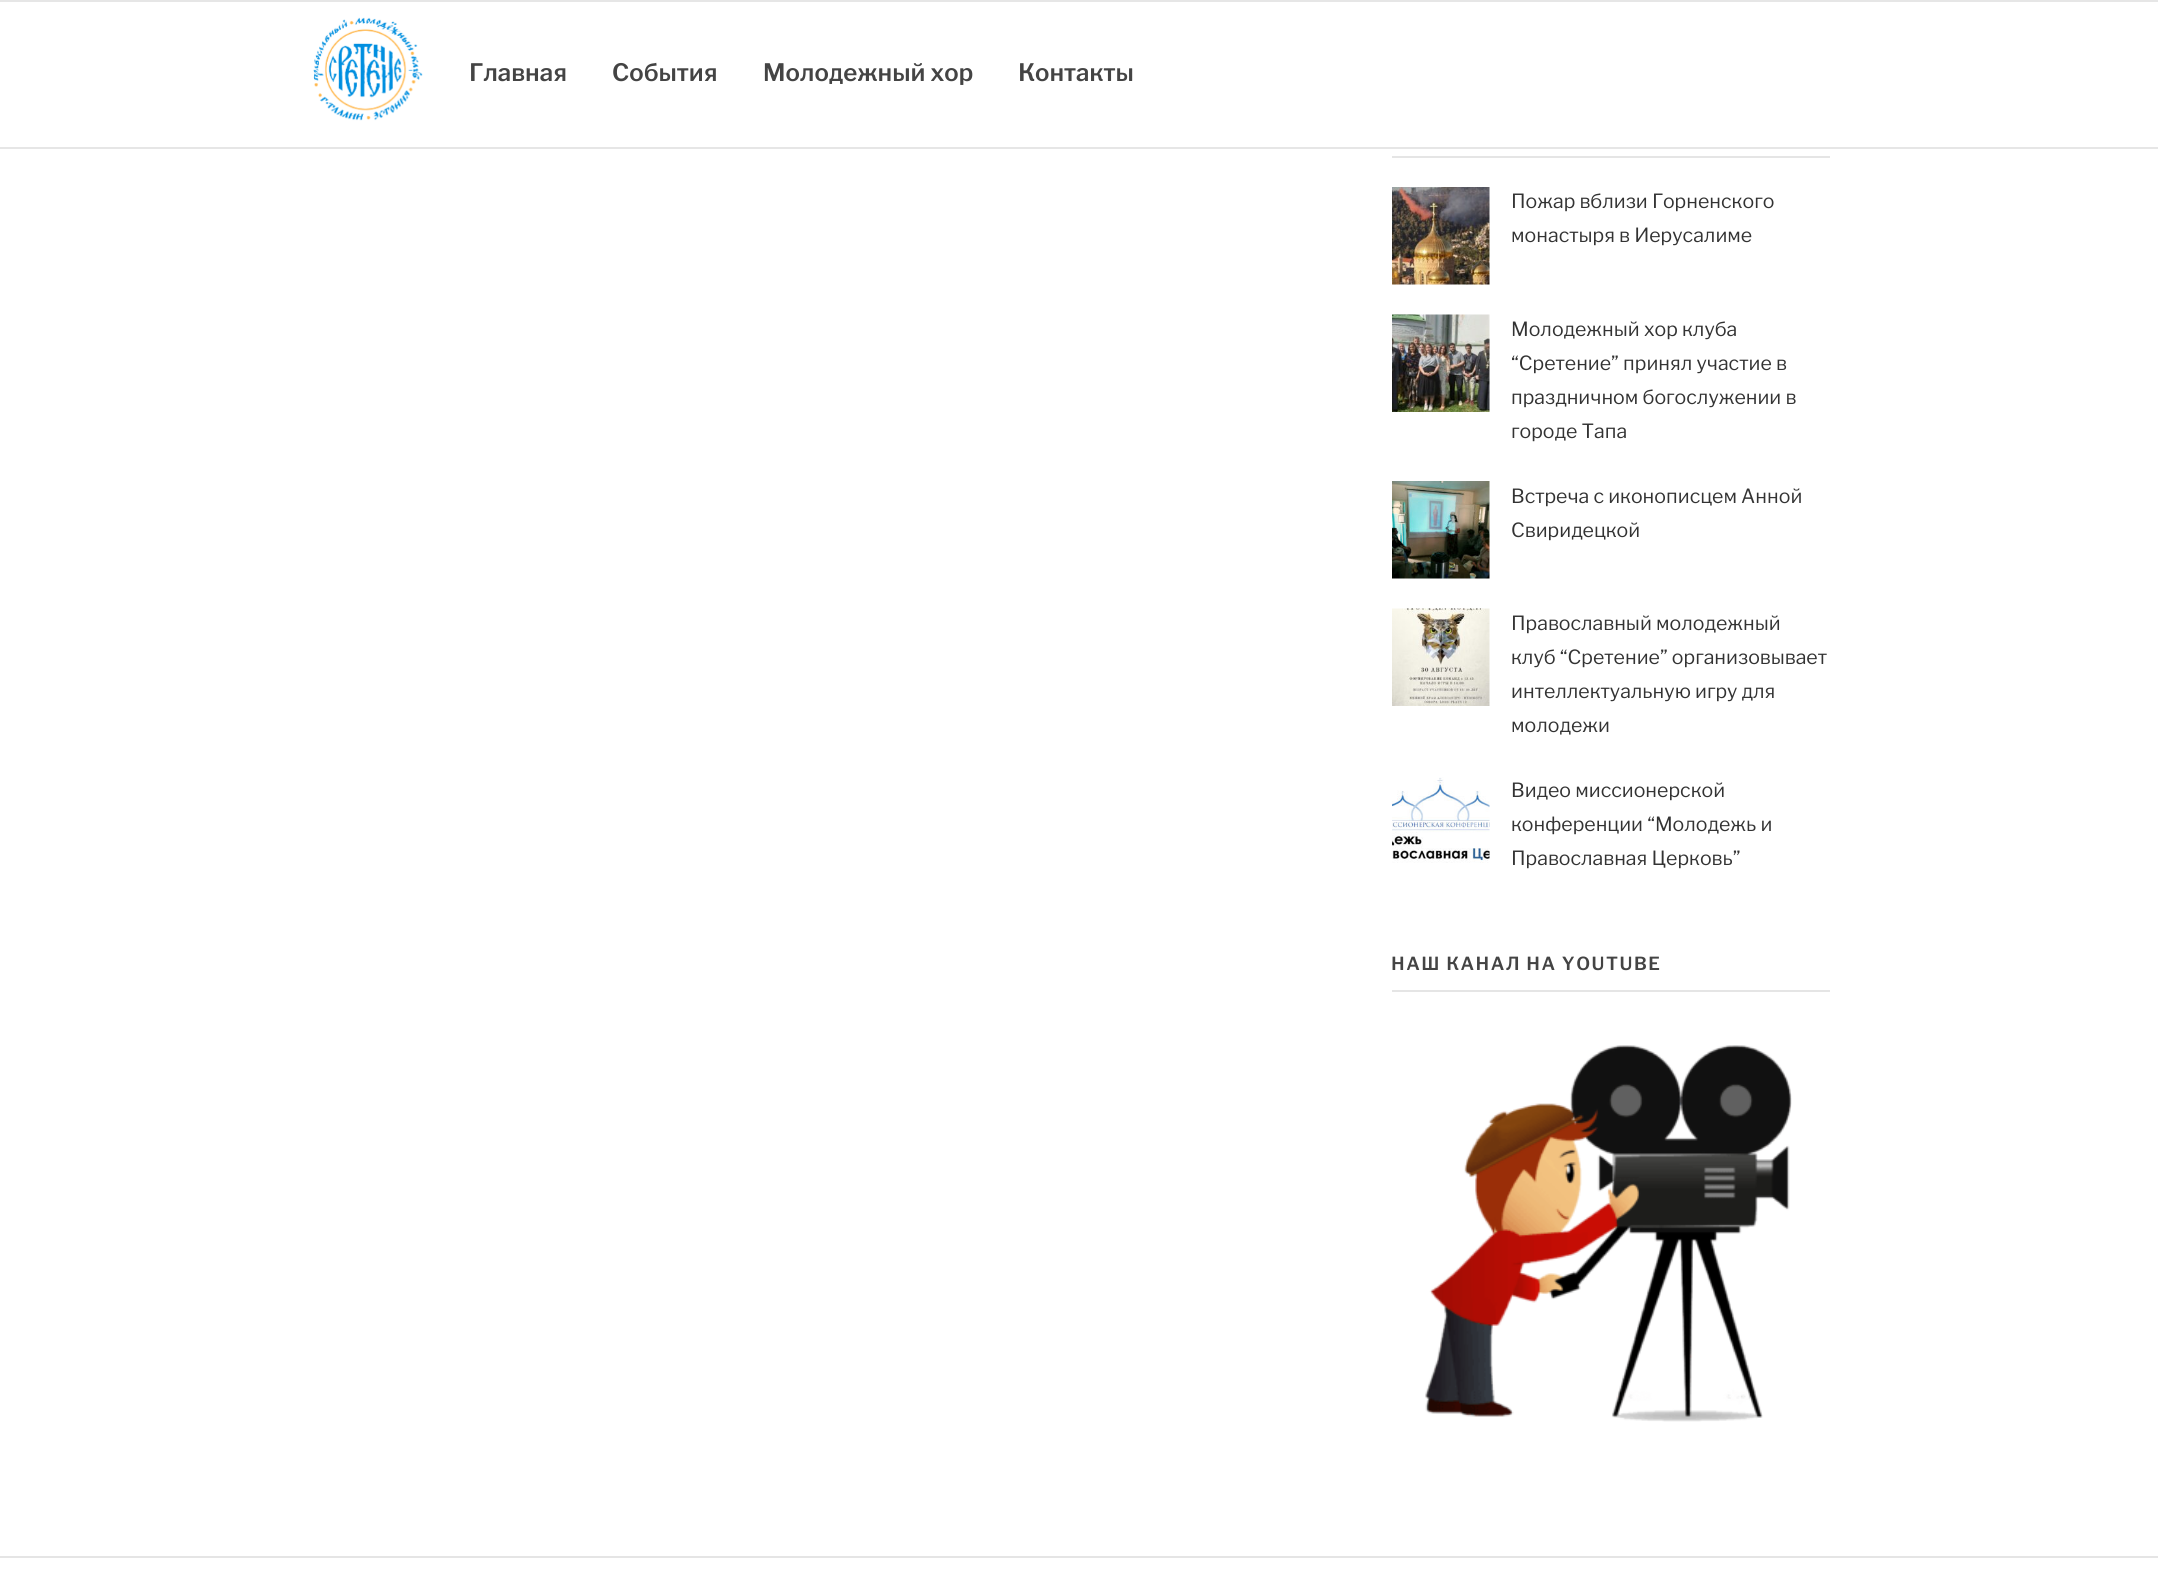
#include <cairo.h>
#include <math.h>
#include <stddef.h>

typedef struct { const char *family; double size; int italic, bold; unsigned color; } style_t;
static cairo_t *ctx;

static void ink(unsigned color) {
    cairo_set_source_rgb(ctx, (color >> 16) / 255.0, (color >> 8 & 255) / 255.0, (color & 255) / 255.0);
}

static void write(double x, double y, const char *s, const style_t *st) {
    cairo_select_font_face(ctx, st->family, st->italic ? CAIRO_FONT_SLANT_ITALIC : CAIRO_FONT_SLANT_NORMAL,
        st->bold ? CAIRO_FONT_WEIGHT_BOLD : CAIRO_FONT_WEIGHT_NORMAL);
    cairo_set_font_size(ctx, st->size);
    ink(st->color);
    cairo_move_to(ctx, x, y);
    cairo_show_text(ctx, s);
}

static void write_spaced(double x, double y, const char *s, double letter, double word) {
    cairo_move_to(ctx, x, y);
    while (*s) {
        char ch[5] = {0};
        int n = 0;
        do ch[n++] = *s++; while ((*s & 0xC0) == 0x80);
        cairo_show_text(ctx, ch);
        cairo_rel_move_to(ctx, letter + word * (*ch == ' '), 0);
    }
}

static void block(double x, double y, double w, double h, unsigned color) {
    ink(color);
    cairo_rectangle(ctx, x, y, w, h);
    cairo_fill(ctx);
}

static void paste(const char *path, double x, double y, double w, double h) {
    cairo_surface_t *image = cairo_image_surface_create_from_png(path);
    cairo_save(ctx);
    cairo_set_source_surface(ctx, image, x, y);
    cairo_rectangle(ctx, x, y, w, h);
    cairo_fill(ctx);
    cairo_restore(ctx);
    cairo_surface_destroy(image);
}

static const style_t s1 = {"Libre Franklin SemiBold", 24, 0, 0, 0x444444};
static const style_t s2 = {"Libre Franklin", 19.5, 0, 0, 0x333333};

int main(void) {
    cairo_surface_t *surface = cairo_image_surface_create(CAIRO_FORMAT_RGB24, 2158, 1592);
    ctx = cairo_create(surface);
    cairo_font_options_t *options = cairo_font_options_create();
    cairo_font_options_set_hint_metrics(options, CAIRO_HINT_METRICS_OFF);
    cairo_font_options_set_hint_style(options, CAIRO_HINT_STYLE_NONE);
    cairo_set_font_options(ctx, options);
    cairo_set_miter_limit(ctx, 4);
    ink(0xffffff);
    cairo_paint(ctx);
    block(0, 0, 2158, 2, 0xe6e6e6);
    block(0, 147, 2158, 2, 0xe6e6e6);
    paste("pic1.png", 313, 17, 110, 104);
    write(469, 81, "Главная", &s1);
    write(612, 81, "События", &s1);
    write(763, 81, "Молодежный хор", &s1);
    write(1018, 81, "Контакты", &s1);
    block(1392, 156, 438, 2, 0xe5e5e5);
    paste("pic2.png", 1392, 187, 98, 98);
    write(1511, 208, "Пожар вблизи Горненского", &s2);
    write(1511, 242, "монастыря в Иерусалиме", &s2);
    paste("pic3.png", 1392, 314, 98, 98);
    write(1511, 336, "Молодежный хор клуба", &s2);
    write(1511, 370, "“Сретение” принял участие в", &s2);
    write(1511, 404, "праздничном богослужении в", &s2);
    write(1511, 438, "городе Тапа", &s2);
    paste("pic4.png", 1392, 481, 98, 98);
    write(1511, 503, "Встреча с иконописцем Анной", &s2);
    write(1511, 537, "Свиридецкой", &s2);
    paste("pic5.png", 1392, 608, 98, 98);
    write(1511, 630, "Православный молодежный", &s2);
    write(1511, 664, "клуб “Сретение” организовывает", &s2);
    write(1511, 698, "интеллектуальную игру для", &s2);
    write(1511, 732, "молодежи", &s2);
    paste("pic6.png", 1392, 777, 98, 86);
    write(1511, 797, "Видео миссионерской", &s2);
    write(1511, 831, "конференции “Молодежь и", &s2);
    write(1511, 865, "Православная Церковь”", &s2);
    block(1392, 990, 438, 2, 0xe5e5e5);
    cairo_select_font_face(ctx, "Libre Franklin SemiBold", CAIRO_FONT_SLANT_NORMAL, CAIRO_FONT_WEIGHT_NORMAL);
    cairo_set_font_size(ctx, 18);
    ink(0x444444);
    write_spaced(1391, 970, "НАШ КАНАЛ НА YOUTUBE", 1.5, 0);
    paste("pic7.png", 1425, 1045, 367, 377);
    block(0, 1556, 2158, 2, 0xe5e5e5);
    cairo_surface_write_to_png(surface, "screenshot.png");
    cairo_font_options_destroy(options);
    cairo_destroy(ctx);
    cairo_surface_destroy(surface);
    return 0;
}
